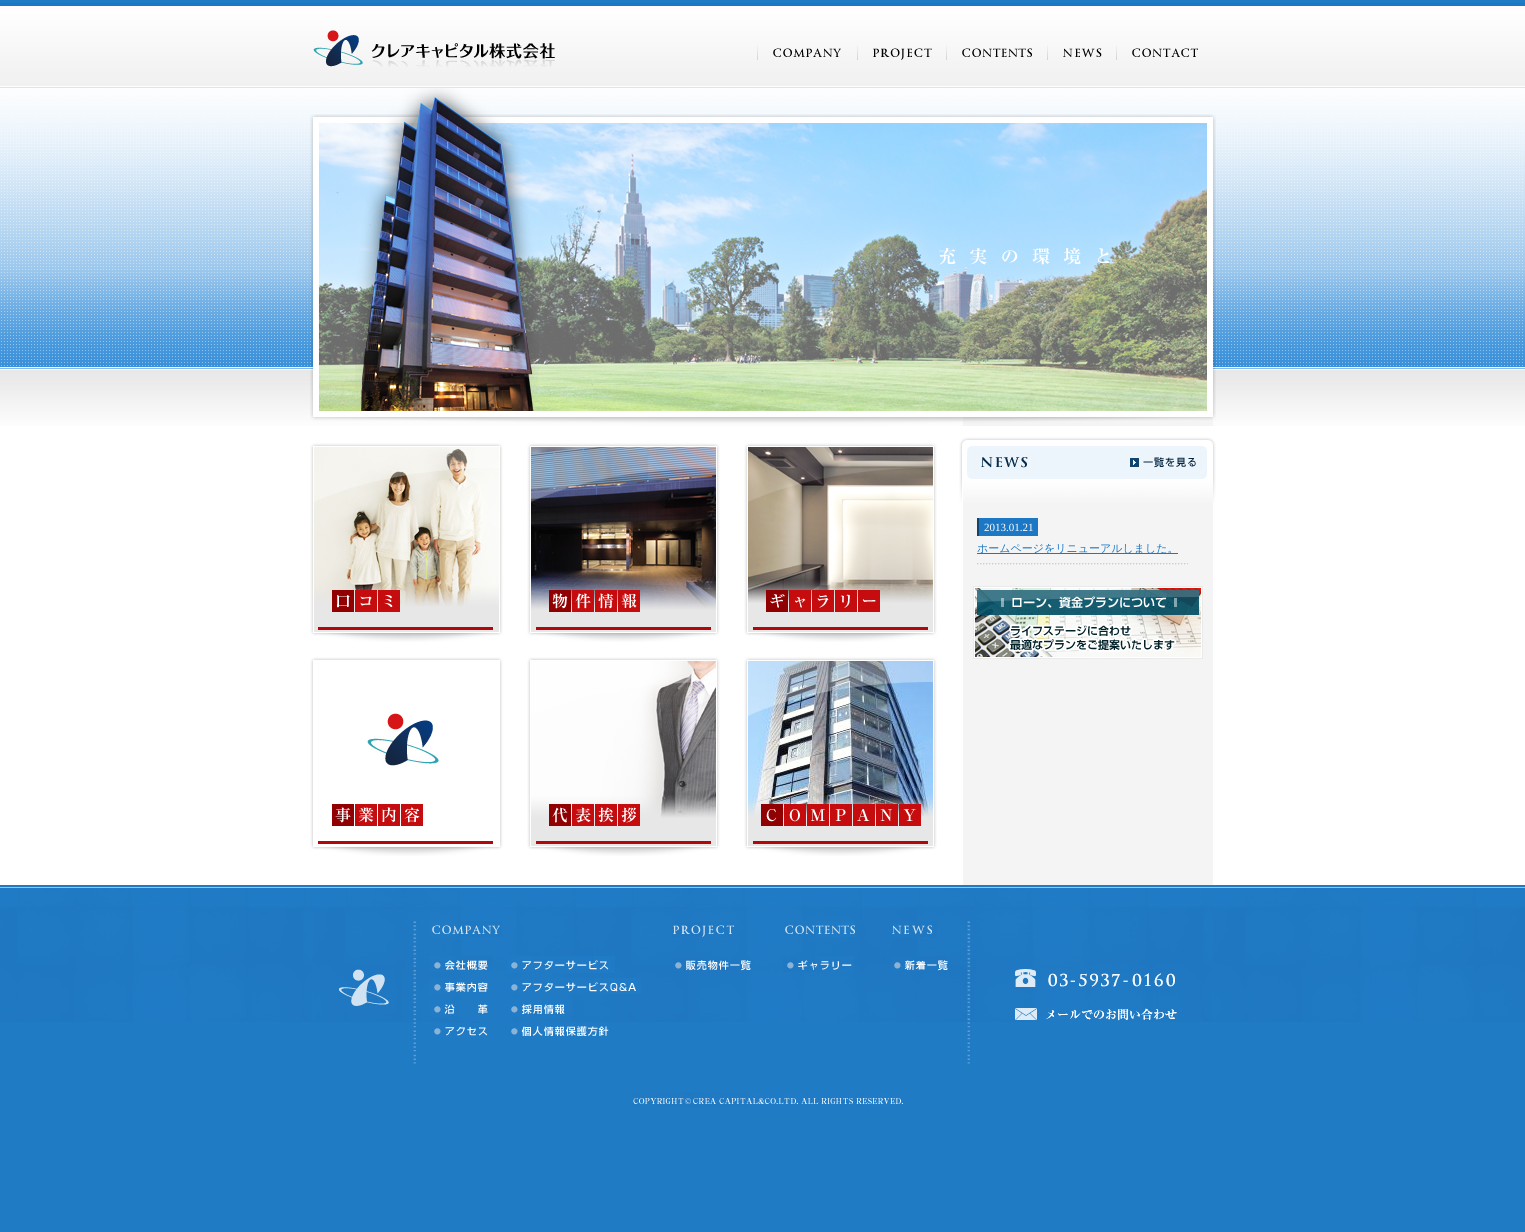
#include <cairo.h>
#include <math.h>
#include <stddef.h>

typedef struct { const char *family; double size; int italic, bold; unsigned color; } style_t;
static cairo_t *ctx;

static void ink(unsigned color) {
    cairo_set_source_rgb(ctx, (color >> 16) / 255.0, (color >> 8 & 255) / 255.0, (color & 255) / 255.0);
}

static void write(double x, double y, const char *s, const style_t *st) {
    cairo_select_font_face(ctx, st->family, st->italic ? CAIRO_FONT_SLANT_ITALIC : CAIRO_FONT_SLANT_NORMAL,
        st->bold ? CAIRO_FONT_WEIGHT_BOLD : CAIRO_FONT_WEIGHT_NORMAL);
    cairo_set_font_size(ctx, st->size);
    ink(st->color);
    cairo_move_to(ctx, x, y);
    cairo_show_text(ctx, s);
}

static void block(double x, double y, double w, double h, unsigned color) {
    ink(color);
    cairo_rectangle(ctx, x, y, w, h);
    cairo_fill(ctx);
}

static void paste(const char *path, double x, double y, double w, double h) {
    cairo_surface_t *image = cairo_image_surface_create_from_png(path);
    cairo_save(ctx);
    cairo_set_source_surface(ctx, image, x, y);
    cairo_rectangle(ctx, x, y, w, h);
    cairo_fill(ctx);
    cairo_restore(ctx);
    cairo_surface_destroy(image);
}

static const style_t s1 = {"Liberation Serif", 11, 0, 0, 0xffffff};
static const style_t s2 = {"WenQuanYi Zen Hei Medium", 11, 0, 0, 0x1c78c4};

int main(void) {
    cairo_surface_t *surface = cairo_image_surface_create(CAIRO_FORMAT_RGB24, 1525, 1232);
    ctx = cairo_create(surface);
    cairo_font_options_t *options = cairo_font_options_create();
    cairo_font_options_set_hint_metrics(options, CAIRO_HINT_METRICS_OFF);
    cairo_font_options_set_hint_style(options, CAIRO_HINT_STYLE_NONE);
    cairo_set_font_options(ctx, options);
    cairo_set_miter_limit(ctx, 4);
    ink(0x207bc5);
    cairo_paint(ctx);
    paste("pic1.png", 0, 3, 1525, 423);
    paste("pic2.png", 313, 30, 242, 37);
    paste("pic3.png", 757, 45, 84, 15);
    paste("pic4.png", 857, 45, 75, 15);
    paste("pic5.png", 946, 45, 86, 15);
    paste("pic6.png", 1047, 45, 55, 15);
    paste("pic7.png", 1116, 45, 82, 15);
    paste("pic8.png", 310, 114, 906, 312);
    paste("pic10.png", 319, 123, 888, 288);
    paste("pic9.png", 355, 88, 184, 323);
    block(0, 426, 1525, 459, 0xffffff);
    block(963, 503, 250, 382, 0xf4f4f4);
    paste("pic11.png", 310, 443, 193, 199);
    paste("pic12.png", 525, 441, 195, 201);
    paste("pic13.png", 744, 443, 193, 199);
    paste("pic14.png", 310, 657, 193, 199);
    paste("pic15.png", 527, 657, 193, 199);
    paste("pic16.png", 744, 657, 193, 199);
    paste("pic17.png", 959, 437, 160, 66);
    paste("pic18.png", 1119, 437, 97, 66);
    paste("pic19.png", 977, 563, 211, 2);
    block(979, 518, 59, 18, 0x1c78c4);
    block(977, 518, 2, 18, 0x12446e);
    write(984, 531, "2013.01.21", &s1);
    block(977, 553, 201, 1, 0x1c78c4);
    write(977, 552, "ホームページをリニューアルしました。", &s2);
    paste("pic20.png", 973, 586, 230, 73);
    paste("pic21.png", 0, 887, 1525, 135);
    paste("pic22.png", 339, 969, 56, 37);
    paste("pic23.png", 413, 921, 4, 143);
    paste("pic24.png", 430, 921, 72, 16);
    paste("pic25.png", 430, 956, 63, 16);
    paste("pic26.png", 430, 978, 64, 16);
    paste("pic27.png", 430, 1000, 64, 16);
    paste("pic28.png", 434, 1022, 58, 16);
    paste("pic29.png", 672, 922, 62, 15);
    paste("pic30.png", 673, 957, 78, 14);
    paste("pic31.png", 783, 921, 72, 16);
    paste("pic32.png", 783, 956, 71, 16);
    paste("pic33.png", 892, 921, 45, 16);
    paste("pic34.png", 891, 956, 57, 15);
    paste("pic35.png", 507, 956, 108, 17);
    paste("pic36.png", 509, 978, 132, 16);
    paste("pic37.png", 509, 1000, 62, 16);
    paste("pic38.png", 511, 1022, 98, 14);
    paste("pic23.png", 967, 921, 4, 143);
    paste("pic39.png", 1015, 969, 160, 24);
    paste("pic40.png", 1015, 1005, 164, 16);
    paste("pic41.png", 633, 1092, 270, 16);
    cairo_surface_write_to_png(surface, "screenshot.png");
    cairo_font_options_destroy(options);
    cairo_destroy(ctx);
    cairo_surface_destroy(surface);
    return 0;
}
